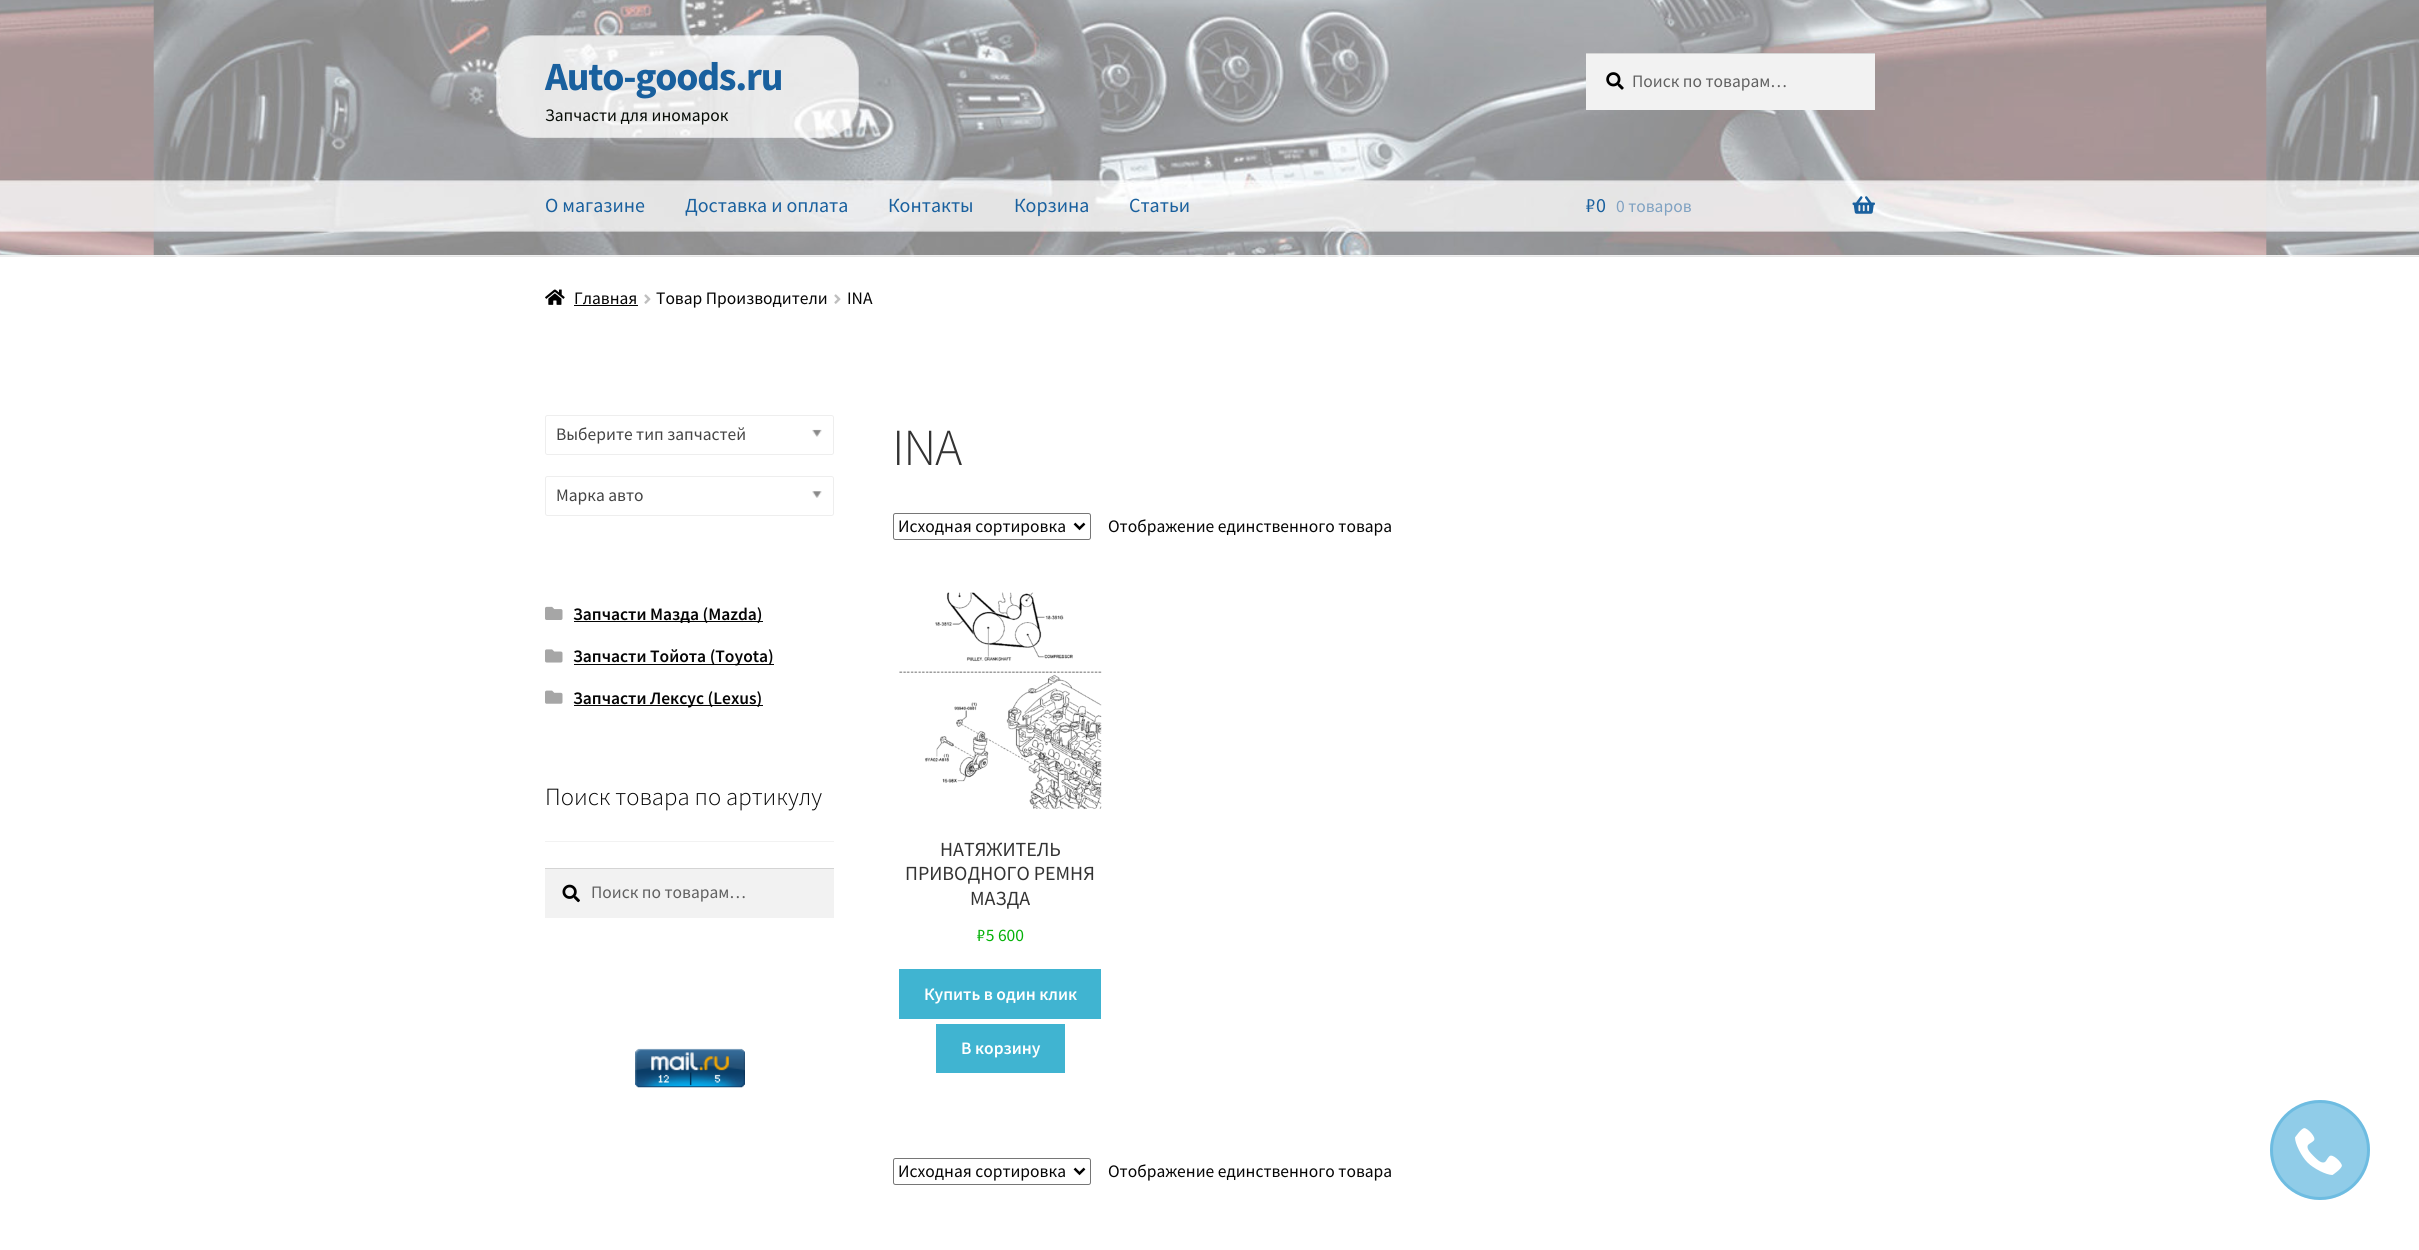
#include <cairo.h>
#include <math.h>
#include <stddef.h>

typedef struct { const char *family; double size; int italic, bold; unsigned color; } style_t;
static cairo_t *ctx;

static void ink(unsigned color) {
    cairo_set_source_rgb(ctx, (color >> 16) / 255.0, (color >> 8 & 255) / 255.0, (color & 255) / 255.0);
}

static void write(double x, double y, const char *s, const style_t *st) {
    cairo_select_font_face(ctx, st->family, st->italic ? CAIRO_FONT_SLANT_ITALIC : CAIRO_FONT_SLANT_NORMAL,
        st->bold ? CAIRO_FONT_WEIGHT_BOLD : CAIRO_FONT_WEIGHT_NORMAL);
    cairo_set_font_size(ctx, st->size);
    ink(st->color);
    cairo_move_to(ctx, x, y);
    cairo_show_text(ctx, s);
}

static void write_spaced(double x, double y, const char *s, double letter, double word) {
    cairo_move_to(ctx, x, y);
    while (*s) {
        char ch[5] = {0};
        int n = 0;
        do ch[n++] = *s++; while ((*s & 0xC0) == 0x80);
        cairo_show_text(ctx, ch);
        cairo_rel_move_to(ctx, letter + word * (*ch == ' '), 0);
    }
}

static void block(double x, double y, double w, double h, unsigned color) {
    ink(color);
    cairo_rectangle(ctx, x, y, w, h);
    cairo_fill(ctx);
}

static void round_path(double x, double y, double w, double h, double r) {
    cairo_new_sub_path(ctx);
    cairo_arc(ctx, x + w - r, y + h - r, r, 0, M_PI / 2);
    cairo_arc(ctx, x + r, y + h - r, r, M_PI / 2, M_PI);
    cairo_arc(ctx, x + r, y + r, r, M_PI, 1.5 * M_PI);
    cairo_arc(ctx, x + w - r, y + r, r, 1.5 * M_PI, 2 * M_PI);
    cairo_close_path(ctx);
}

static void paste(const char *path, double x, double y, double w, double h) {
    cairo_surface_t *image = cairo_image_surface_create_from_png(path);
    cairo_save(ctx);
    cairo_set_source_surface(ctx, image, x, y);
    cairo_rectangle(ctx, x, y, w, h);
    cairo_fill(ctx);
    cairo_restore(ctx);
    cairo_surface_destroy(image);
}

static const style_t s1 = {"Source Sans Pro", 17.5, 0, 0, 0x070c06};
static const style_t s2 = {"Source Sans Pro", 17.5, 0, 0, 0x616161};
static const style_t s3 = {"Source Sans Pro", 20, 0, 0, 0x19609e};
static const style_t s4 = {"Source Sans Pro", 17.5, 0, 0, 0x80a2c2};
static const style_t s5 = {"Source Sans Pro", 17.5, 0, 0, 0x050505};
static const style_t s6 = {"Source Sans Pro", 17.5, 0, 0, 0x444444};
static const style_t s7 = {"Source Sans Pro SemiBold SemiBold", 17.5, 0, 0, 0x050505};
static const style_t s8 = {"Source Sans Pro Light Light", 24.75, 0, 0, 0x050505};
static const style_t s9 = {"Source Sans Pro", 20, 0, 0, 0x333333};
static const style_t s10 = {"Source Sans Pro", 17.5, 0, 0, 0x05b208};
static const style_t s11 = {"Source Sans Pro SemiBold SemiBold", 17.5, 0, 0, 0xffffff};

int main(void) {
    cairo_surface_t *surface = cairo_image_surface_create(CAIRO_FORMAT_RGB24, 2419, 1250);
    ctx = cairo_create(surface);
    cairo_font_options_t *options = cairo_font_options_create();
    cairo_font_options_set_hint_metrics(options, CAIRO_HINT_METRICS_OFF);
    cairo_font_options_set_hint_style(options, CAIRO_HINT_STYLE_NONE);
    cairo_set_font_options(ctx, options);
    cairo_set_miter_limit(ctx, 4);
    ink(0xffffff);
    cairo_paint(ctx);
    paste("pic1.png", 0, 0, 2419, 257);
    block(0, 255, 2419, 1, 0xf0f0f0);
    cairo_select_font_face(ctx, "Source Sans Pro", CAIRO_FONT_SLANT_NORMAL, CAIRO_FONT_WEIGHT_BOLD);
    cairo_set_font_size(ctx, 40);
    ink(0x19609e);
    write_spaced(545, 90, "Auto-goods.ru", -1.25, 0);
    write(545, 121, "Запчасти для иномарок", &s1);
    block(1586, 54, 289, 56, 0xf2f2f2);
    paste("pic2.png", 1606, 72, 18, 18);
    block(1586, 53, 289, 1, 0xd4d4d4);
    write(1632, 87, "Поиск по товарам…", &s2);
    write(545, 212, "О магазине", &s3);
    write(685, 212, "Доставка и оплата", &s3);
    write(888, 212, "Контакты", &s3);
    write(1014, 212, "Корзина", &s3);
    write(1129, 212, "Статьи", &s3);
    write(1586, 212, "₽0", &s3);
    write(1616, 212, "0 товаров", &s4);
    paste("pic3.png", 1852, 196, 23, 18);
    paste("pic4.png", 545, 289, 20, 16);
    write(574, 304, "Главная", &s5);
    block(574, 305, 64, 1, 0x000000);
    paste("pic5.png", 644, 294, 7, 10);
    write(656, 304, "Товар Производители", &s5);
    paste("pic5.png", 834, 294, 7, 10);
    write(847, 304, "INA", &s5);
    round_path(545.5, 415.5, 288, 39, 2);
    ink(0xeeeeee);
    cairo_set_line_width(ctx, 1);
    cairo_stroke(ctx);
    write(556, 440, "Выберите тип запчастей", &s6);
    paste("pic6.png", 812, 429, 10, 8);
    round_path(545.5, 476.5, 288, 39, 2);
    ink(0xeeeeee);
    cairo_stroke(ctx);
    write(556, 501, "Марка авто", &s6);
    paste("pic7.png", 812, 491, 10, 7);
    paste("pic8.png", 545, 606, 18, 14);
    block(574, 621, 189, 1, 0x050505);
    write(573, 620, "Запчасти Мазда (Mazda)", &s7);
    paste("pic9.png", 545, 649, 18, 14);
    block(574, 664, 200, 1, 0x050505);
    write(573, 662, "Запчасти Тойота (Toyota)", &s7);
    paste("pic10.png", 545, 690, 18, 14);
    block(574, 705, 189, 1, 0x050505);
    write(573, 704, "Запчасти Лексус (Lexus)", &s7);
    block(545, 841, 289, 1, 0xf2f2f2);
    write(545, 805, "Поиск товара по артикулу", &s8);
    block(545, 869, 289, 49, 0xf2f2f2);
    paste("pic11.png", 562, 884, 18, 19);
    block(545, 868, 289, 1, 0xd4d4d4);
    write(591, 898, "Поиск по товарам…", &s2);
    paste("pic12.png", 635, 1048, 110, 40);
    cairo_select_font_face(ctx, "Source Sans Pro Light Light", CAIRO_FONT_SLANT_NORMAL, CAIRO_FONT_WEIGHT_NORMAL);
    cairo_set_font_size(ctx, 52);
    ink(0x333333);
    write_spaced(892, 465, "INA", -1.25, 0);
    round_path(893.5, 513.5, 197, 26, 2);
    ink(0x767676);
    cairo_stroke(ctx);
    cairo_new_path(ctx);
    cairo_move_to(ctx, 1074.5, 523.5);
    cairo_line_to(ctx, 1079.5, 528.5);
    cairo_line_to(ctx, 1084.5, 523.5);
    ink(0x000000);
    cairo_set_line_width(ctx, 2.5);
    cairo_stroke(ctx);
    write(898, 532, "Исходная сортировка", &s5);
    write(1108, 532, "Отображение единственного товара", &s5);
    paste("pic13.png", 899, 592, 203, 217);
    write(940, 856, "НАТЯЖИТЕЛЬ", &s9);
    write(905, 880, "ПРИВОДНОГО РЕМНЯ", &s9);
    write(970, 905, "МАЗДА", &s9);
    write(977, 941, "₽5 600", &s10);
    block(899, 969, 202, 50, 0x40b4d1);
    write(924, 1000, "Купить в один клик", &s11);
    block(936, 1024, 129, 49, 0x40b4d1);
    write(961, 1054, "В корзину", &s11);
    round_path(893.5, 1158.5, 197, 26, 2);
    ink(0x767676);
    cairo_set_line_width(ctx, 1);
    cairo_stroke(ctx);
    cairo_new_path(ctx);
    cairo_move_to(ctx, 1074.5, 1168.5);
    cairo_line_to(ctx, 1079.5, 1173.5);
    cairo_line_to(ctx, 1084.5, 1168.5);
    ink(0x000000);
    cairo_set_line_width(ctx, 2.5);
    cairo_stroke(ctx);
    write(898, 1177, "Исходная сортировка", &s5);
    write(1108, 1177, "Отображение единственного товара", &s5);
    ink(0x90cce8);
    cairo_new_path(ctx);
    cairo_arc(ctx, 2320, 1150, 50, 0, 2 * M_PI);
    cairo_fill(ctx);
    cairo_arc(ctx, 2320, 1150, 48.5, 0, 2 * M_PI);
    cairo_set_source_rgba(ctx, 0.125, 0.596, 0.82, 0.3);
    cairo_set_line_width(ctx, 3);
    cairo_stroke(ctx);
    paste("pic14.png", 2295, 1128, 47, 47);
    cairo_surface_write_to_png(surface, "screenshot.png");
    cairo_font_options_destroy(options);
    cairo_destroy(ctx);
    cairo_surface_destroy(surface);
    return 0;
}
